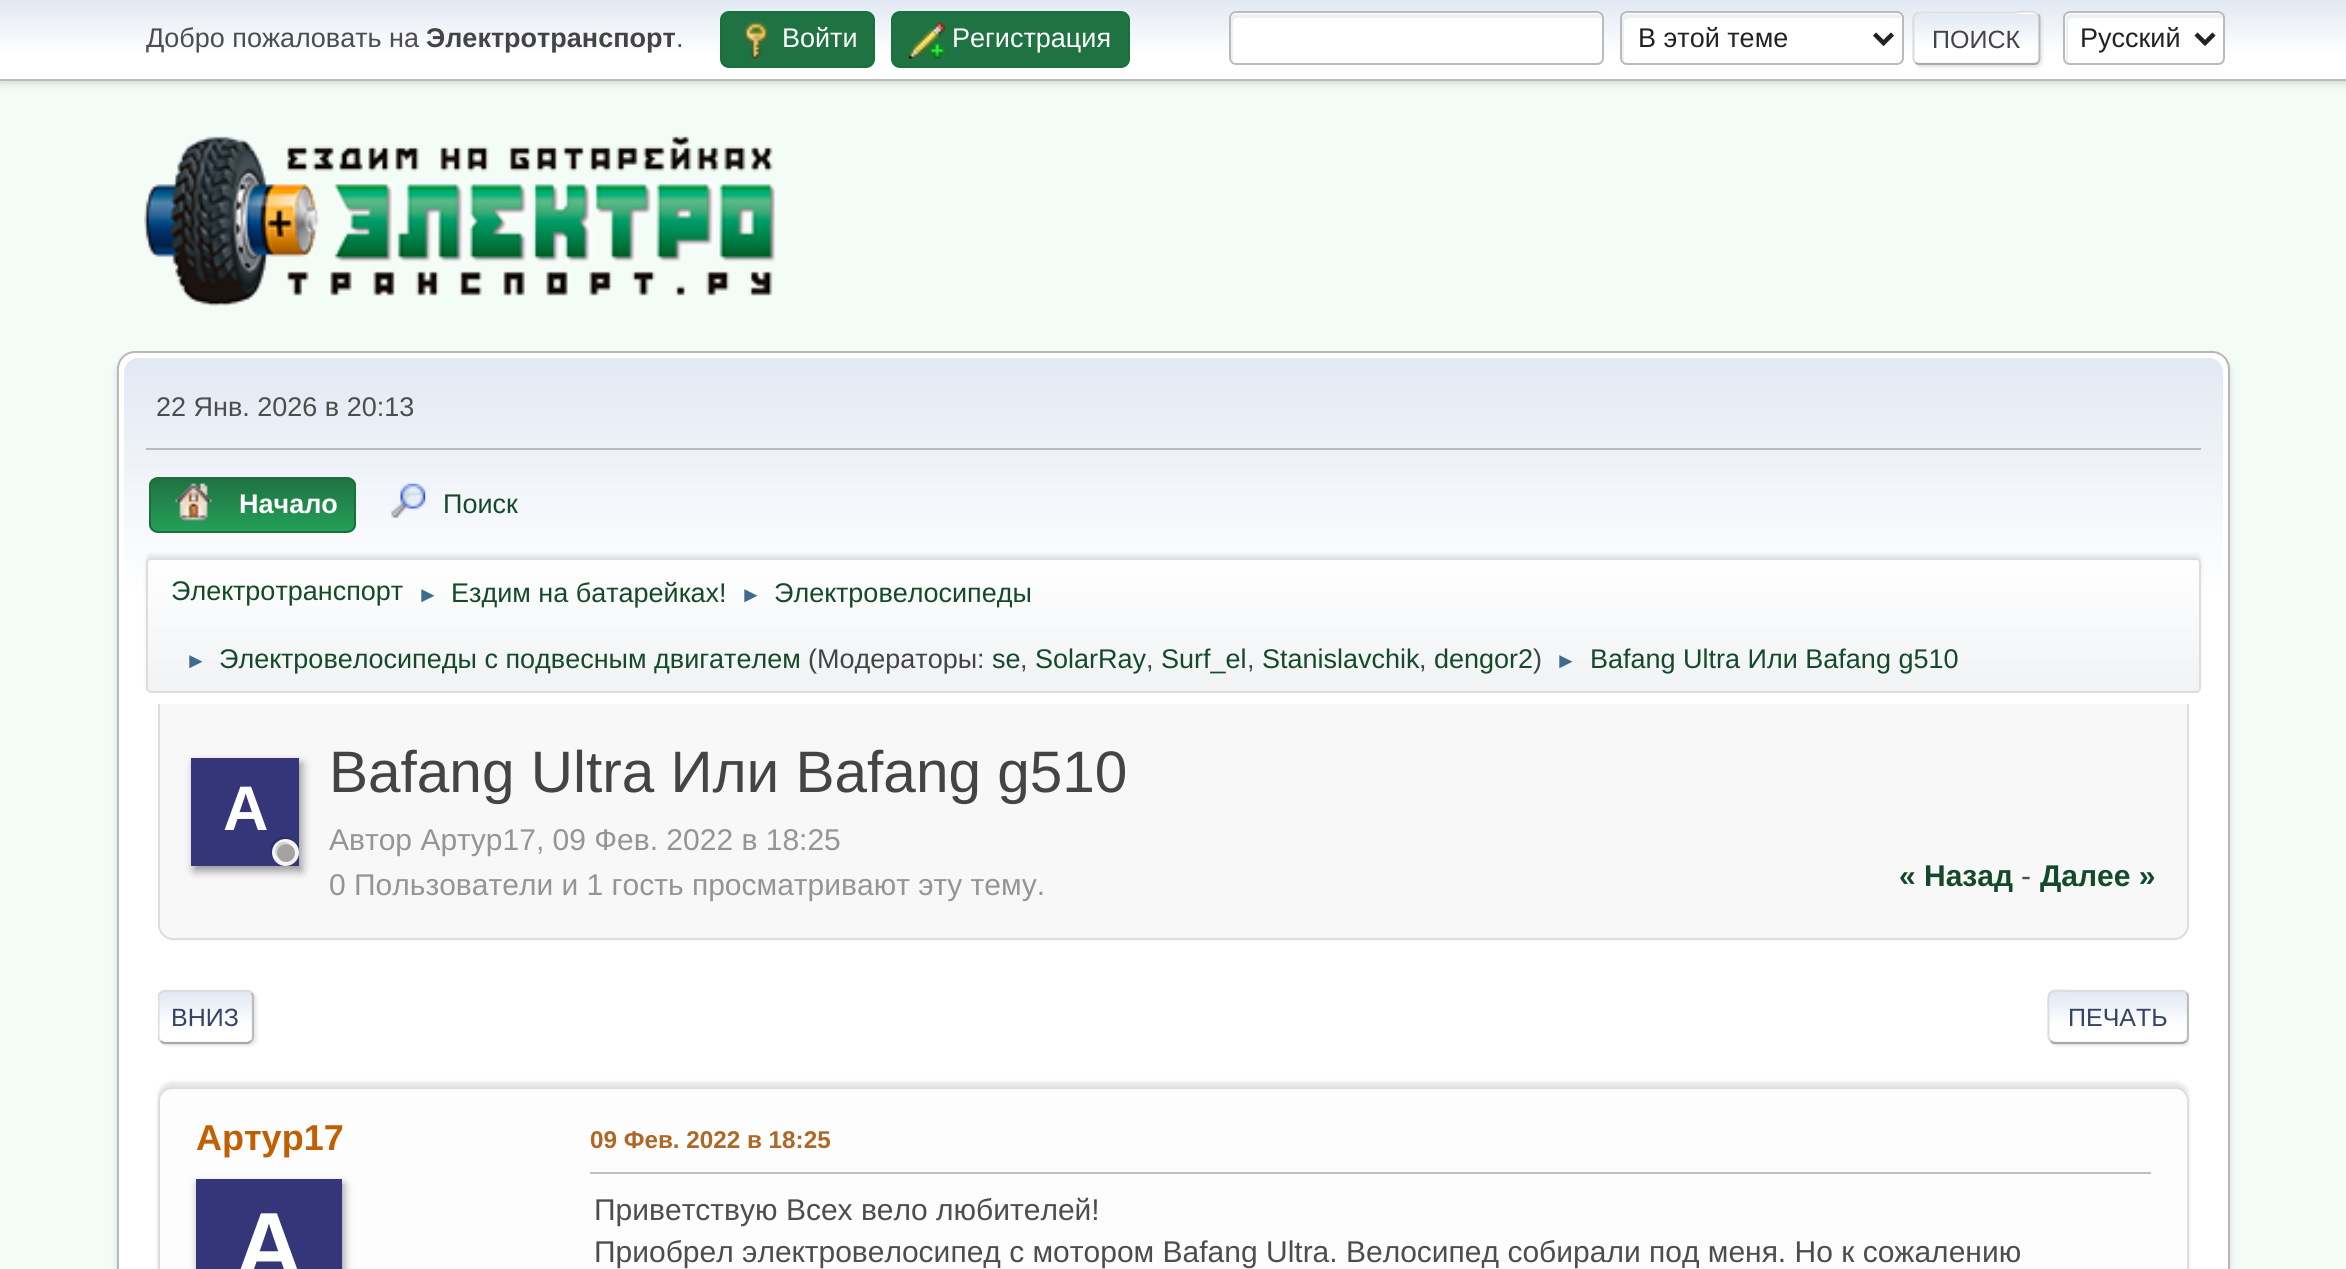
#include <cairo.h>
#include <math.h>
#include <stddef.h>

typedef struct { const char *family; double size; int italic, bold; unsigned color; } style_t;
static cairo_t *ctx;

static void ink(unsigned color) {
    cairo_set_source_rgb(ctx, (color >> 16) / 255.0, (color >> 8 & 255) / 255.0, (color & 255) / 255.0);
}

static void write(double x, double y, const char *s, const style_t *st) {
    cairo_select_font_face(ctx, st->family, st->italic ? CAIRO_FONT_SLANT_ITALIC : CAIRO_FONT_SLANT_NORMAL,
        st->bold ? CAIRO_FONT_WEIGHT_BOLD : CAIRO_FONT_WEIGHT_NORMAL);
    cairo_set_font_size(ctx, st->size);
    ink(st->color);
    cairo_move_to(ctx, x, y);
    cairo_show_text(ctx, s);
}

static void block(double x, double y, double w, double h, unsigned color) {
    ink(color);
    cairo_rectangle(ctx, x, y, w, h);
    cairo_fill(ctx);
}

static void round_path(double x, double y, double w, double h, double r) {
    cairo_new_sub_path(ctx);
    cairo_arc(ctx, x + w - r, y + h - r, r, 0, M_PI / 2);
    cairo_arc(ctx, x + r, y + h - r, r, M_PI / 2, M_PI);
    cairo_arc(ctx, x + r, y + r, r, M_PI, 1.5 * M_PI);
    cairo_arc(ctx, x + w - r, y + r, r, 1.5 * M_PI, 2 * M_PI);
    cairo_close_path(ctx);
}

static void blur_box(double x, double y, double w, double h, double r, double blur, double alpha) {
    cairo_push_group_with_content(ctx, CAIRO_CONTENT_ALPHA);
    cairo_set_operator(ctx, CAIRO_OPERATOR_SOURCE);
    for (int i = 15; i >= -15 && fmin(w, h) + blur * i / 3 > 0; i -= 2) {
        double e = blur * i / 6;
        cairo_set_source_rgba(ctx, 0, 0, 0, alpha * erfc((i - 1) / 8.5) / 2);
        round_path(x - e, y - e, w + 2 * e, h + 2 * e, fmax(0, fmin(r + e + blur * .6, fmin(w, h) / 2 + e)));
        cairo_fill(ctx);
    }
    cairo_pattern_t *soft = cairo_pop_group(ctx);
    cairo_mask(ctx, soft);
    cairo_pattern_destroy(soft);
}

static void paste(const char *path, double x, double y, double w, double h) {
    cairo_surface_t *image = cairo_image_surface_create_from_png(path);
    cairo_save(ctx);
    cairo_set_source_surface(ctx, image, x, y);
    cairo_rectangle(ctx, x, y, w, h);
    cairo_fill(ctx);
    cairo_restore(ctx);
    cairo_surface_destroy(image);
}

static const style_t s1 = {"Liberation Sans", 27, 0, 0, 0x4d4d4d};
static const style_t s2 = {"Liberation Sans", 27, 0, 1, 0x444444};
static const style_t s3 = {"Liberation Sans", 27, 0, 0, 0xffffff};
static const style_t s4 = {"Liberation Sans", 27, 0, 0, 0x222222};
static const style_t s5 = {"Liberation Sans", 25, 0, 0, 0x444444};
static const style_t s6 = {"Liberation Sans", 27, 0, 1, 0xffffff};
static const style_t s7 = {"Liberation Sans", 27, 0, 0, 0x144a2b};
static const style_t s8 = {"Liberation Sans", 22, 0, 0, 0x3f6b8c};
static const style_t s9 = {"Liberation Sans", 27, 0, 0, 0x444444};
static const style_t s10 = {"Liberation Sans", 63, 0, 1, 0xffffff};
static const style_t s11 = {"Liberation Sans", 58.5, 0, 0, 0x444444};
static const style_t s12 = {"Liberation Sans", 30, 0, 0, 0x959595};
static const style_t s13 = {"Liberation Sans", 30, 0, 1, 0x144a2b};
static const style_t s14 = {"Liberation Sans", 30, 0, 0, 0x4d4d4d};
static const style_t s15 = {"Liberation Sans", 25, 0, 0, 0x334466};
static const style_t s16 = {"Liberation Sans", 36, 0, 1, 0xc06002};
static const style_t s17 = {"Liberation Sans", 94, 0, 1, 0xffffff};
static const style_t s18 = {"Liberation Sans", 24.25, 0, 1, 0xad6825};

int main(void) {
    cairo_surface_t *surface = cairo_image_surface_create(CAIRO_FORMAT_RGB24, 2346, 1269);
    ctx = cairo_create(surface);
    cairo_font_options_t *options = cairo_font_options_create();
    cairo_font_options_set_hint_metrics(options, CAIRO_HINT_METRICS_OFF);
    cairo_font_options_set_hint_style(options, CAIRO_HINT_STYLE_NONE);
    cairo_set_font_options(ctx, options);
    cairo_set_miter_limit(ctx, 4);
    cairo_pattern_t *gradient;
    ink(0xf3fcf7);
    cairo_paint(ctx);
    ink(0x000000);
    blur_box(0, 2, 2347, 81, 0, 4.5, 0.16);
    gradient = cairo_pattern_create_linear(1173, 0, 1173, 79);
    cairo_pattern_add_color_stop_rgba(gradient, 0, 0.886, 0.914, 0.953, 1);
    cairo_pattern_add_color_stop_rgba(gradient, 0.7, 1, 1, 1, 1);
    cairo_set_source(ctx, gradient);
    cairo_pattern_destroy(gradient);
    cairo_rectangle(ctx, 0, 0, 2346, 79);
    cairo_fill(ctx);
    block(0, 79, 2346, 2, 0xbbbbbb);
    write(146, 47, "Добро пожаловать на", &s1);
    write(426, 47, "Электротранспорт", &s2);
    write(676, 47, ".", &s1);
    ink(0x1f7242);
    round_path(721, 12, 153, 55, 8);
    cairo_fill_preserve(ctx);
    ink(0x196f3d);
    cairo_stroke(ctx);
    paste("pic1.png", 744, 22, 24, 37);
    write(782, 47, "Войти", &s3);
    ink(0x1f7242);
    round_path(892, 12, 237, 55, 8);
    cairo_fill_preserve(ctx);
    ink(0x196f3d);
    cairo_stroke(ctx);
    paste("pic2.png", 909, 22, 36, 37);
    write(952, 47, "Регистрация", &s3);
    round_path(1229, 11, 375, 54, 7);
    cairo_fill(ctx);
    ink(0xecf1f8);
    cairo_new_path(ctx);
    cairo_move_to(ctx, 1238, 18);
    cairo_line_to(ctx, 1600, 18);
    cairo_line_to(ctx, 1602, 19);
    cairo_curve_to(ctx, 1602, 16, 1600, 14, 1597, 14);
    cairo_line_to(ctx, 1236, 14);
    cairo_curve_to(ctx, 1233, 14, 1231, 16, 1231, 19);
    cairo_line_to(ctx, 1231, 58);
    cairo_curve_to(ctx, 1231, 60, 1232, 61, 1233, 62);
    cairo_line_to(ctx, 1233, 22);
    cairo_curve_to(ctx, 1233, 20, 1235, 18, 1238, 18);
    cairo_close_path(ctx);
    cairo_fill(ctx);
    round_path(1230, 12, 373, 52, 6);
    ink(0xbbbbbb);
    cairo_stroke(ctx);
    ink(0xffffff);
    round_path(1620, 11, 284, 54, 7);
    cairo_fill(ctx);
    ink(0xecf1f8);
    cairo_new_path(ctx);
    cairo_move_to(ctx, 1629, 18);
    cairo_line_to(ctx, 1899, 18);
    cairo_line_to(ctx, 1901, 18);
    cairo_curve_to(ctx, 1901, 16, 1899, 14, 1896, 14);
    cairo_line_to(ctx, 1627, 14);
    cairo_curve_to(ctx, 1624, 14, 1622, 16, 1622, 19);
    cairo_line_to(ctx, 1622, 58);
    cairo_curve_to(ctx, 1622, 60, 1623, 61, 1624, 62);
    cairo_line_to(ctx, 1624, 22);
    cairo_curve_to(ctx, 1624, 20, 1627, 18, 1629, 18);
    cairo_close_path(ctx);
    cairo_fill(ctx);
    round_path(1621, 12, 282, 52, 6);
    ink(0xbbbbbb);
    cairo_stroke(ctx);
    cairo_new_path(ctx);
    cairo_move_to(ctx, 1874.5, 34);
    cairo_line_to(ctx, 1883.5, 43);
    cairo_line_to(ctx, 1892.5, 34);
    ink(0x222222);
    cairo_set_line_width(ctx, 4.5);
    cairo_stroke(ctx);
    write(1638, 47, "В этой теме", &s4);
    ink(0xdddddd);
    blur_box(1915, 14, 128, 54, 7, 1, 0.57);
    cairo_save(ctx);
    round_path(1913, 11, 128, 54, 7);
    cairo_clip(ctx);
    gradient = cairo_pattern_create_linear(1977, -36, 1977, 14);
    cairo_pattern_add_color_stop_rgba(gradient, 0, 0.886, 0.914, 0.953, 1);
    cairo_pattern_add_color_stop_rgba(gradient, 0.7, 1, 1, 1, 1);
    cairo_set_source(ctx, gradient);
    cairo_pattern_destroy(gradient);
    cairo_rectangle(ctx, 1913, 11, 128, 3);
    cairo_fill(ctx);
    gradient = cairo_pattern_create_linear(1977, 13, 1977, 63);
    cairo_pattern_add_color_stop_rgba(gradient, 0, 0.886, 0.914, 0.953, 1);
    cairo_pattern_add_color_stop_rgba(gradient, 0.7, 1, 1, 1, 1);
    cairo_set_source(ctx, gradient);
    cairo_pattern_destroy(gradient);
    cairo_rectangle(ctx, 1913, 14, 128, 49);
    cairo_fill(ctx);
    cairo_restore(ctx);
    cairo_new_path(ctx);
    cairo_move_to(ctx, 2038, 14);
    cairo_curve_to(ctx, 2039, 15, 2039.5, 16.5, 2039.5, 18);
    cairo_line_to(ctx, 2039.5, 58.5);
    cairo_curve_to(ctx, 2039.5, 60, 2039, 61.5, 2038, 62.5);
    ink(0xbbbbbb);
    cairo_set_line_width(ctx, 2.2);
    cairo_stroke(ctx);
    cairo_new_path(ctx);
    cairo_move_to(ctx, 2038, 62.5);
    cairo_curve_to(ctx, 2037, 63.5, 2035.5, 64, 2034, 64);
    cairo_line_to(ctx, 1919, 64);
    cairo_curve_to(ctx, 1918, 64, 1916.5, 63.5, 1915.5, 62.5);
    ink(0xaaaaaa);
    cairo_stroke(ctx);
    cairo_new_path(ctx);
    cairo_move_to(ctx, 1915.5, 62.5);
    cairo_curve_to(ctx, 1912.5, 60, 1913.5, 55, 1913.5, 52);
    cairo_line_to(ctx, 1913.5, 38);
    cairo_curve_to(ctx, 1913.5, 9, 1909, 12.5, 1938.5, 12.5);
    cairo_line_to(ctx, 2015, 12.5);
    cairo_curve_to(ctx, 2015, 12.5, 2033.5, 9.5, 2038, 14);
    ink(0xdddddd);
    cairo_stroke(ctx);
    write(1932, 48, "ПОИСК", &s5);
    ink(0xffffff);
    round_path(2063, 11, 162, 54, 7);
    cairo_fill(ctx);
    ink(0xecf1f8);
    cairo_new_path(ctx);
    cairo_move_to(ctx, 2072, 18);
    cairo_line_to(ctx, 2221, 18);
    cairo_line_to(ctx, 2223, 19);
    cairo_curve_to(ctx, 2223, 16, 2221, 14, 2218, 14);
    cairo_line_to(ctx, 2071, 14);
    cairo_curve_to(ctx, 2068, 14, 2066, 16, 2066, 19);
    cairo_line_to(ctx, 2066, 58);
    cairo_curve_to(ctx, 2066, 60, 2067, 61, 2068, 62);
    cairo_line_to(ctx, 2068, 22);
    cairo_curve_to(ctx, 2068, 20, 2070, 18, 2072, 18);
    cairo_close_path(ctx);
    cairo_fill(ctx);
    round_path(2064, 12, 160, 52, 6);
    ink(0xbbbbbb);
    cairo_set_line_width(ctx, 2);
    cairo_stroke(ctx);
    cairo_new_path(ctx);
    cairo_move_to(ctx, 2196, 34);
    cairo_line_to(ctx, 2205, 43);
    cairo_line_to(ctx, 2214, 34);
    ink(0x222222);
    cairo_set_line_width(ctx, 4.5);
    cairo_stroke(ctx);
    write(2080, 47, "Русский", &s4);
    paste("pic3.png", 144, 135, 632, 171);
    ink(0x000000);
    blur_box(117, 356, 2113, 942, 18, 3.5, 0.14);
    ink(0xffffff);
    round_path(118, 352, 2111, 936, 17);
    cairo_fill_preserve(ctx);
    ink(0xb8b8b8);
    cairo_set_line_width(ctx, 2);
    cairo_stroke(ctx);
    gradient = cairo_pattern_create_linear(1173, 358, 1173, 698);
    cairo_pattern_add_color_stop_rgba(gradient, 0, 0.886, 0.914, 0.953, 1);
    cairo_pattern_add_color_stop_rgba(gradient, 0.7, 1, 1, 1, 1);
    cairo_set_source(ctx, gradient);
    cairo_pattern_destroy(gradient);
    cairo_new_path(ctx);
    cairo_move_to(ctx, 138, 358);
    cairo_line_to(ctx, 2209, 358);
    cairo_curve_to(ctx, 2216.5, 358, 2223, 364.5, 2223, 372);
    cairo_line_to(ctx, 2223, 698);
    cairo_line_to(ctx, 124, 698);
    cairo_line_to(ctx, 124, 372);
    cairo_curve_to(ctx, 124, 364.5, 130.5, 358, 138, 358);
    cairo_close_path(ctx);
    cairo_fill(ctx);
    block(146, 448, 2055, 2, 0xbbbbbb);
    write(156, 416, "22 Янв. 2026 в 20:13", &s1);
    cairo_save(ctx);
    round_path(149, 477, 207, 56, 9);
    cairo_clip(ctx);
    gradient = cairo_pattern_create_linear(252, 479, 252, 531);
    cairo_pattern_add_color_stop_rgba(gradient, 0, 0.122, 0.447, 0.259, 1);
    cairo_pattern_add_color_stop_rgba(gradient, 1, 0.141, 0.627, 0.345, 1);
    cairo_set_source(ctx, gradient);
    cairo_pattern_destroy(gradient);
    cairo_rectangle(ctx, 149, 479, 207, 52);
    cairo_fill(ctx);
    cairo_restore(ctx);
    round_path(150, 478, 205, 54, 8);
    ink(0x196f3d);
    cairo_stroke(ctx);
    paste("pic4.png", 175, 483, 38, 38);
    write(239, 513, "Начало", &s6);
    paste("pic5.png", 391, 483, 35, 36);
    write(443, 513, "Поиск", &s7);
    ink(0x000000);
    blur_box(146, 554, 2055, 135, 5, 2, 0.08);
    cairo_save(ctx);
    round_path(146, 558, 2055, 135, 5);
    cairo_clip(ctx);
    gradient = cairo_pattern_create_linear(1173, 560, 1173, 691);
    cairo_pattern_add_color_stop_rgba(gradient, 0, 1, 1, 1, 1);
    cairo_pattern_add_color_stop_rgba(gradient, 0.95, 0.945, 0.953, 0.961, 1);
    cairo_set_source(ctx, gradient);
    cairo_pattern_destroy(gradient);
    cairo_rectangle(ctx, 146, 560, 2055, 131);
    cairo_fill(ctx);
    cairo_restore(ctx);
    round_path(147, 559, 2053, 133, 4);
    ink(0xdddddd);
    cairo_stroke(ctx);
    write(171, 600, "Электротранспорт", &s7);
    write(417, 602, "►", &s8);
    write(451, 602, "Ездим на батарейках!", &s7);
    write(740, 602, "►", &s8);
    write(774, 602, "Электровелосипеды", &s7);
    write(185, 668, "►", &s8);
    write(219, 668, "Электровелосипеды с подвесным двигателем", &s7);
    write(808, 668, "(Модераторы:", &s9);
    write(992, 668, "se", &s7);
    write(1020, 668, ",", &s9);
    write(1035, 668, "SolarRay", &s7);
    write(1146, 668, ",", &s9);
    write(1161, 668, "Surf_el", &s7);
    write(1247, 668, ",", &s9);
    write(1262, 668, "Stanislavchik", &s7);
    write(1419, 668, ",", &s9);
    write(1434, 668, "dengor2", &s7);
    write(1533, 668, ")", &s9);
    write(1555, 668, "►", &s8);
    write(1590, 668, "Bafang Ultra Или Bafang g510", &s7);
    ink(0xf8f8f8);
    cairo_new_path(ctx);
    cairo_move_to(ctx, 158, 704);
    cairo_line_to(ctx, 2189, 704);
    cairo_line_to(ctx, 2189, 925);
    cairo_curve_to(ctx, 2189, 934, 2182, 941, 2173, 941);
    cairo_line_to(ctx, 174, 941);
    cairo_curve_to(ctx, 165, 941, 158, 934, 158, 925);
    cairo_close_path(ctx);
    cairo_fill(ctx);
    ink(0xdddddd);
    cairo_set_fill_rule(ctx, CAIRO_FILL_RULE_EVEN_ODD);
    cairo_new_path(ctx);
    cairo_move_to(ctx, 158, 704);
    cairo_line_to(ctx, 2189, 704);
    cairo_line_to(ctx, 2189, 925);
    cairo_curve_to(ctx, 2189, 933, 2182, 940, 2174, 940);
    cairo_line_to(ctx, 173, 940);
    cairo_curve_to(ctx, 165, 940, 158, 933, 158, 925);
    cairo_close_path(ctx);
    cairo_move_to(ctx, 160, 704);
    cairo_line_to(ctx, 2187, 704);
    cairo_line_to(ctx, 2187, 925);
    cairo_curve_to(ctx, 2187, 932, 2181, 938, 2174, 938);
    cairo_line_to(ctx, 173, 938);
    cairo_curve_to(ctx, 166, 938, 160, 932, 160, 925);
    cairo_close_path(ctx);
    cairo_fill(ctx);
    ink(0x000000);
    blur_box(194, 763, 108, 108, 0, 4.5, 0.4);
    block(191, 758, 108, 108, 0x343679);
    write(223, 830, "А", &s10);
    ink(0x2c2e67);
    cairo_set_fill_rule(ctx, CAIRO_FILL_RULE_WINDING);
    cairo_new_path(ctx);
    cairo_move_to(ctx, 283.5, 837);
    cairo_curve_to(ctx, 270.5, 837, 265.5, 853.5, 275, 861);
    cairo_curve_to(ctx, 265.5, 848.5, 281.5, 832.5, 294, 842);
    cairo_curve_to(ctx, 291.5, 839, 288, 837, 283.5, 837);
    cairo_close_path(ctx);
    cairo_fill(ctx);
    ink(0xf3f5f7);
    cairo_arc(ctx, 285.5, 852.5, 13.5, 0, 2 * M_PI);
    cairo_fill(ctx);
    ink(0xcfd0d2);
    cairo_new_path(ctx);
    cairo_move_to(ctx, 284, 842);
    cairo_curve_to(ctx, 275.5, 842, 272, 853, 278.5, 858);
    cairo_curve_to(ctx, 272.5, 850, 283, 839.5, 291, 845.5);
    cairo_curve_to(ctx, 289.5, 843.5, 287, 842, 284, 842);
    cairo_close_path(ctx);
    cairo_fill(ctx);
    ink(0xa7a2a2);
    cairo_arc(ctx, 286, 853, 9, 0, 2 * M_PI);
    cairo_fill(ctx);
    write(329, 792, "Bafang Ultra Или Bafang g510", &s11);
    write(329, 850, "Автор Артур17, 09 Фев. 2022 в 18:25", &s12);
    write(329, 895, "0 Пользователи и 1 гость просматривают эту тему.", &s12);
    write(1899, 886, "« Назад", &s13);
    write(2021, 886, "-", &s14);
    write(2040, 886, "Далее »", &s13);
    ink(0xdddddd);
    blur_box(160, 992, 97, 54, 7, 1, 0.57);
    cairo_save(ctx);
    round_path(158, 990, 96, 54, 7);
    cairo_clip(ctx);
    gradient = cairo_pattern_create_linear(206, 992, 206, 1042);
    cairo_pattern_add_color_stop_rgba(gradient, 0, 0.886, 0.914, 0.953, 1);
    cairo_pattern_add_color_stop_rgba(gradient, 0.7, 1, 1, 1, 1);
    cairo_set_source(ctx, gradient);
    cairo_pattern_destroy(gradient);
    cairo_rectangle(ctx, 158, 992, 96, 50);
    cairo_fill(ctx);
    cairo_restore(ctx);
    cairo_new_path(ctx);
    cairo_move_to(ctx, 251.5, 993);
    cairo_curve_to(ctx, 252.5, 994, 253, 995.5, 253, 997);
    cairo_line_to(ctx, 253, 1037);
    cairo_curve_to(ctx, 253, 1038.5, 252.5, 1040, 251.5, 1041);
    ink(0xbbbbbb);
    cairo_set_line_width(ctx, 2.2);
    cairo_stroke(ctx);
    cairo_new_path(ctx);
    cairo_move_to(ctx, 251.5, 1041);
    cairo_line_to(ctx, 248, 1043);
    cairo_line_to(ctx, 163.5, 1043);
    cairo_line_to(ctx, 160.5, 1041);
    ink(0xaaaaaa);
    cairo_stroke(ctx);
    cairo_save(ctx);
    cairo_rectangle(ctx, 158, 974, 2031, 86);
    cairo_clip(ctx);
    cairo_new_path(ctx);
    cairo_move_to(ctx, 160.5, 1041);
    cairo_curve_to(ctx, 159, 1040, 158.5, 1038.5, 158.5, 1037);
    cairo_line_to(ctx, 158.5, 997);
    cairo_curve_to(ctx, 158.5, 995.5, 159, 994, 160.5, 993);
    cairo_curve_to(ctx, 161.5, 991.5, 163, 991, 164, 991);
    cairo_line_to(ctx, 247.5, 991);
    cairo_curve_to(ctx, 249, 991, 250.5, 991.5, 251.5, 993);
    ink(0xdddddd);
    cairo_stroke(ctx);
    cairo_restore(ctx);
    write(171, 1026, "ВНИЗ", &s15);
    cairo_save(ctx);
    cairo_rectangle(ctx, 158, 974, 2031, 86);
    cairo_clip(ctx);
    ink(0xdddddd);
    blur_box(2050, 992, 142, 54, 7, 1, 0.57);
    cairo_restore(ctx);
    cairo_save(ctx);
    round_path(2048, 990, 141, 54, 7);
    cairo_clip(ctx);
    gradient = cairo_pattern_create_linear(2118, 992, 2118, 1042);
    cairo_pattern_add_color_stop_rgba(gradient, 0, 0.886, 0.914, 0.953, 1);
    cairo_pattern_add_color_stop_rgba(gradient, 0.7, 1, 1, 1, 1);
    cairo_set_source(ctx, gradient);
    cairo_pattern_destroy(gradient);
    cairo_rectangle(ctx, 2048, 992, 141, 50);
    cairo_fill(ctx);
    cairo_restore(ctx);
    cairo_save(ctx);
    cairo_rectangle(ctx, 158, 974, 2031, 86);
    cairo_clip(ctx);
    cairo_new_path(ctx);
    cairo_move_to(ctx, 2186.5, 993);
    cairo_curve_to(ctx, 2187.5, 994, 2188, 995.5, 2188, 997);
    cairo_line_to(ctx, 2188, 1037);
    cairo_curve_to(ctx, 2188, 1038.5, 2187.5, 1040, 2186.5, 1041);
    ink(0xbbbbbb);
    cairo_stroke(ctx);
    cairo_restore(ctx);
    cairo_new_path(ctx);
    cairo_move_to(ctx, 2186.5, 1041);
    cairo_line_to(ctx, 2183, 1043);
    cairo_line_to(ctx, 2053.5, 1043);
    cairo_line_to(ctx, 2050.5, 1041);
    ink(0xaaaaaa);
    cairo_stroke(ctx);
    cairo_new_path(ctx);
    cairo_move_to(ctx, 2050.5, 1041);
    cairo_curve_to(ctx, 2047.5, 1038.5, 2048.5, 1033.5, 2048.5, 1030.5);
    cairo_line_to(ctx, 2048.5, 1017);
    cairo_curve_to(ctx, 2048.5, 986.5, 2044, 991, 2075.5, 991);
    cairo_line_to(ctx, 2182.5, 991);
    cairo_curve_to(ctx, 2184, 991, 2185.5, 991.5, 2186.5, 993);
    ink(0xdddddd);
    cairo_stroke(ctx);
    write(2068, 1026, "ПЕЧАТЬ", &s15);
    ink(0x000000);
    blur_box(158, 1082, 2031, 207, 14, 2, 0.1);
    ink(0xfdfdfd);
    round_path(159, 1088, 2029, 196, 13);
    cairo_fill_preserve(ctx);
    ink(0xdddddd);
    cairo_set_line_width(ctx, 2);
    cairo_stroke(ctx);
    write(196, 1150, "Артур17", &s16);
    ink(0x000000);
    blur_box(198, 1184, 146, 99, 0, 4.5, 0.4);
    block(196, 1179, 146, 90, 0x343679);
    write(235, 1278, "А", &s17);
    write(590, 1148, "09 Фев. 2022 в 18:25", &s18);
    block(590, 1172, 1561, 2, 0xbfbfbf);
    write(594, 1220, "Приветствую Всех вело любителей!", &s14);
    write(594, 1262, "Приобрел электровелосипед с мотором Bafang Ultra. Велосипед собирали под меня. Но к сожалению", &s14);
    cairo_surface_write_to_png(surface, "screenshot.png");
    cairo_font_options_destroy(options);
    cairo_destroy(ctx);
    cairo_surface_destroy(surface);
    return 0;
}
